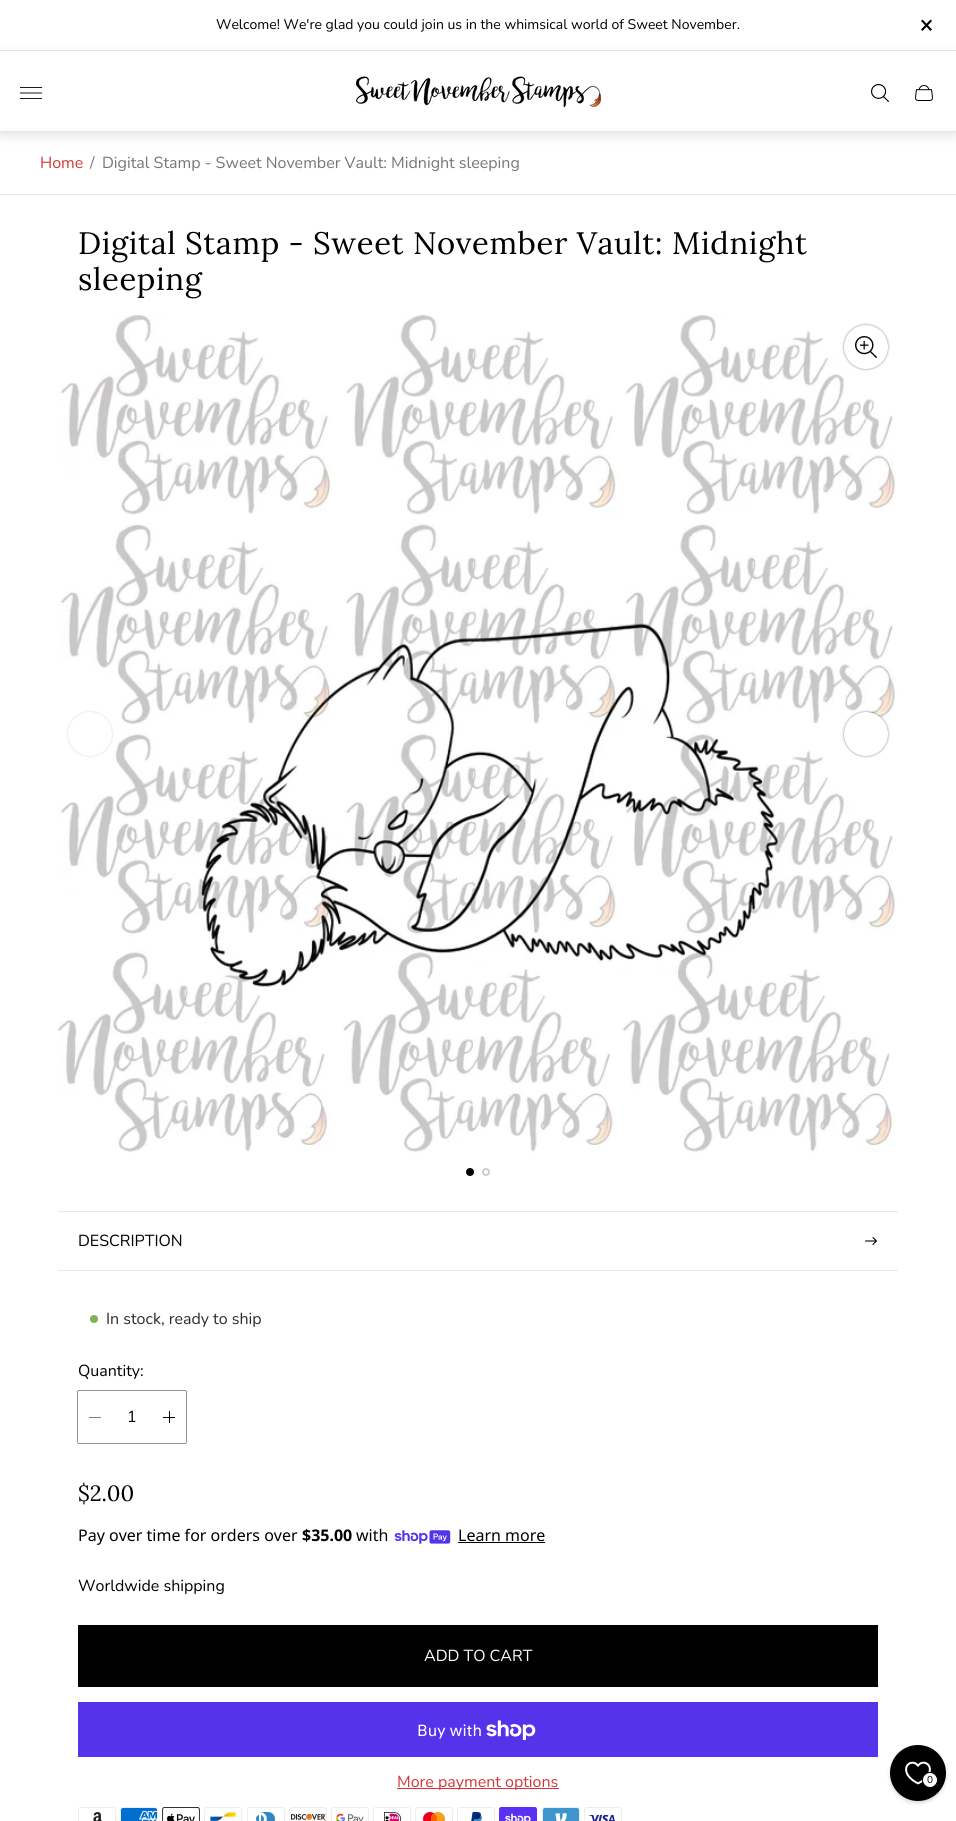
#include <cairo.h>
#include <math.h>
#include <stddef.h>

typedef struct { const char *family; double size; int italic, bold; unsigned color; } style_t;
static cairo_t *ctx;

static void ink(unsigned color) {
    cairo_set_source_rgb(ctx, (color >> 16) / 255.0, (color >> 8 & 255) / 255.0, (color & 255) / 255.0);
}

static void write(double x, double y, const char *s, const style_t *st) {
    cairo_select_font_face(ctx, st->family, st->italic ? CAIRO_FONT_SLANT_ITALIC : CAIRO_FONT_SLANT_NORMAL,
        st->bold ? CAIRO_FONT_WEIGHT_BOLD : CAIRO_FONT_WEIGHT_NORMAL);
    cairo_set_font_size(ctx, st->size);
    ink(st->color);
    cairo_move_to(ctx, x, y);
    cairo_show_text(ctx, s);
}

static void write_spaced(double x, double y, const char *s, double letter, double word) {
    cairo_move_to(ctx, x, y);
    while (*s) {
        char ch[5] = {0};
        int n = 0;
        do ch[n++] = *s++; while ((*s & 0xC0) == 0x80);
        cairo_show_text(ctx, ch);
        cairo_rel_move_to(ctx, letter + word * (*ch == ' '), 0);
    }
}

static void block(double x, double y, double w, double h, unsigned color) {
    ink(color);
    cairo_rectangle(ctx, x, y, w, h);
    cairo_fill(ctx);
}

static void round_path(double x, double y, double w, double h, double r) {
    cairo_new_sub_path(ctx);
    cairo_arc(ctx, x + w - r, y + h - r, r, 0, M_PI / 2);
    cairo_arc(ctx, x + r, y + h - r, r, M_PI / 2, M_PI);
    cairo_arc(ctx, x + r, y + r, r, M_PI, 1.5 * M_PI);
    cairo_arc(ctx, x + w - r, y + r, r, 1.5 * M_PI, 2 * M_PI);
    cairo_close_path(ctx);
}

static void blur_box(double x, double y, double w, double h, double r, double blur, double alpha) {
    cairo_push_group_with_content(ctx, CAIRO_CONTENT_ALPHA);
    cairo_set_operator(ctx, CAIRO_OPERATOR_SOURCE);
    for (int i = 15; i >= -15 && fmin(w, h) + blur * i / 3 > 0; i -= 2) {
        double e = blur * i / 6;
        cairo_set_source_rgba(ctx, 0, 0, 0, alpha * erfc((i - 1) / 8.5) / 2);
        round_path(x - e, y - e, w + 2 * e, h + 2 * e, fmax(0, fmin(r + e + blur * .6, fmin(w, h) / 2 + e)));
        cairo_fill(ctx);
    }
    cairo_pattern_t *soft = cairo_pop_group(ctx);
    cairo_mask(ctx, soft);
    cairo_pattern_destroy(soft);
}

static void paste(const char *path, double x, double y, double w, double h) {
    cairo_surface_t *image = cairo_image_surface_create_from_png(path);
    cairo_save(ctx);
    cairo_set_source_surface(ctx, image, x, y);
    cairo_rectangle(ctx, x, y, w, h);
    cairo_fill(ctx);
    cairo_restore(ctx);
    cairo_surface_destroy(image);
}

static const style_t s1 = {"Nunito", 14, 0, 0, 0x000000};
static const style_t s2 = {"Nunito", 16, 0, 0, 0xd33636};
static const style_t s3 = {"Nunito", 16, 0, 0, 0x757575};
static const style_t s4 = {"Nunito", 16, 0, 0, 0x000000};
static const style_t s5 = {"Nunito", 16, 0, 0, 0x2c2a28};
static const style_t s6 = {"Lora", 22, 0, 0, 0x000000};
static const style_t s7 = {"Noto Sans", 16, 0, 0, 0x000000};
static const style_t s8 = {"Noto Sans", 16, 0, 1, 0x000000};
static const style_t s9 = {"Nunito", 16, 0, 0, 0xffffff};
static const style_t s10 = {"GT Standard", 16, 0, 0, 0xffffff};
static const style_t s11 = {"Nunito", 10, 0, 0, 0x000000};

int main(void) {
    cairo_surface_t *surface = cairo_image_surface_create(CAIRO_FORMAT_RGB24, 956, 1821);
    ctx = cairo_create(surface);
    cairo_font_options_t *options = cairo_font_options_create();
    cairo_font_options_set_hint_metrics(options, CAIRO_HINT_METRICS_OFF);
    cairo_font_options_set_hint_style(options, CAIRO_HINT_STYLE_NONE);
    cairo_set_font_options(ctx, options);
    cairo_set_miter_limit(ctx, 4);
    ink(0xffffff);
    cairo_paint(ctx);
    block(0, 50, 956, 1, 0xe6e6e6);
    write(216, 29, "Welcome! We're glad you could join us in the whimsical world of Sweet November.", &s1);
    cairo_new_path(ctx);
    cairo_move_to(ctx, 930.5, 19.5);
    cairo_line_to(ctx, 932, 21);
    cairo_line_to(ctx, 922.5, 31);
    cairo_line_to(ctx, 921, 29.5);
    cairo_close_path(ctx);
    cairo_fill(ctx);
    cairo_new_path(ctx);
    cairo_move_to(ctx, 921, 21);
    cairo_line_to(ctx, 922.5, 19.5);
    cairo_line_to(ctx, 932, 29.5);
    cairo_line_to(ctx, 930.5, 31);
    cairo_close_path(ctx);
    cairo_fill(ctx);
    cairo_save(ctx);
    cairo_set_fill_rule(ctx, CAIRO_FILL_RULE_EVEN_ODD);
    cairo_new_path(ctx);
    cairo_move_to(ctx, 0, 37);
    cairo_line_to(ctx, 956, 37);
    cairo_line_to(ctx, 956, 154);
    cairo_line_to(ctx, 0, 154);
    cairo_close_path(ctx);
    cairo_move_to(ctx, 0, 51);
    cairo_line_to(ctx, 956, 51);
    cairo_line_to(ctx, 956, 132);
    cairo_line_to(ctx, 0, 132);
    cairo_close_path(ctx);
    cairo_clip(ctx);
    ink(0x000000);
    blur_box(0, 55, 956, 81, 0, 5.5, 0.1);
    cairo_restore(ctx);
    block(0, 131, 956, 1, 0xe6e6e6);
    block(20, 87, 22, 1, 0x1a1a1a);
    cairo_new_path(ctx);
    cairo_move_to(ctx, 20, 93);
    cairo_line_to(ctx, 42, 93);
    ink(0x000000);
    cairo_set_line_width(ctx, 0.9);
    cairo_stroke(ctx);
    block(20, 98, 22, 1, 0x1a1a1a);
    paste("pic1.png", 356, 76, 245, 32);
    paste("pic2.png", 871, 84, 18, 18);
    paste("pic3.png", 915, 85, 18, 16);
    block(0, 194, 956, 1, 0xe6e6e6);
    write(40, 168, "Home", &s2);
    write(90, 168, "/", &s3);
    write(102, 168, "Digital Stamp - Sweet November Vault: Midnight sleeping", &s3);
    cairo_select_font_face(ctx, "Lora", CAIRO_FONT_SLANT_NORMAL, CAIRO_FONT_WEIGHT_NORMAL);
    cairo_set_font_size(ctx, 31);
    ink(0x000000);
    write_spaced(78, 254, "Digital Stamp - Sweet November Vault: Midnight", 0.6, 0);
    write_spaced(78, 290, "sleeping", 0.6, 0);
    paste("pic4.png", 58, 315, 839, 839);
    ink(0xa6a6a6);
    blur_box(69, 713, 42, 42, 21, 1.5, 1);
    ink(0xffffff);
    cairo_arc(ctx, 90, 734, 22, 0, 2 * M_PI);
    cairo_fill(ctx);
    ink(0x000000);
    blur_box(845, 713, 42, 42, 21, 1.5, 1);
    ink(0xffffff);
    cairo_arc(ctx, 866, 734, 22, 0, 2 * M_PI);
    cairo_fill(ctx);
    ink(0x000000);
    cairo_arc(ctx, 470, 1172, 3, 0, 2 * M_PI);
    cairo_fill_preserve(ctx);
    cairo_set_line_width(ctx, 2);
    cairo_stroke(ctx);
    cairo_arc(ctx, 486, 1172, 3, 0, 2 * M_PI);
    ink(0xcccccc);
    cairo_stroke(ctx);
    ink(0x000000);
    blur_box(845, 326, 42, 42, 21, 1.5, 1);
    ink(0xffffff);
    cairo_arc(ctx, 866, 347, 22, 0, 2 * M_PI);
    cairo_fill(ctx);
    paste("pic5.png", 855, 336, 22, 22);
    block(58, 1211, 840, 1, 0xe6e6e6);
    block(58, 1270, 840, 1, 0xe6e6e6);
    write(78, 1246, "DESCRIPTION", &s4);
    paste("pic6.png", 865, 1237, 12, 8);
    ink(0x81b154);
    cairo_arc(ctx, 94, 1319, 4, 0, 2 * M_PI);
    cairo_fill(ctx);
    write(106, 1324, "In stock, ready to ship", &s5);
    write(78, 1376, "Quantity:", &s4);
    round_path(77.5, 1390.5, 109, 53, 1.5);
    ink(0x949494);
    cairo_set_line_width(ctx, 1);
    cairo_stroke(ctx);
    block(89, 1417, 12, 1, 0x808080);
    write(127, 1422, "1", &s4);
    block(163, 1417, 12, 1, 0x000000);
    block(169, 1411, 1, 12, 0x000000);
    write(78, 1501, "$2.00", &s6);
    write(78, 1541, "Pay over time for orders over", &s7);
    write(302, 1541, "$35.00", &s8);
    write(356, 1541, "with", &s7);
    paste("pic7.png", 394, 1530, 57, 14);
    write(458, 1541, "Learn more", &s7);
    block(458, 1542, 87, 1, 0x000000);
    write(78, 1591, "Worldwide shipping", &s4);
    block(78, 1625, 800, 62, 0x000000);
    write(424, 1661, "ADD TO CART", &s9);
    block(78, 1702, 800, 55, 0x5433eb);
    write(417, 1736, "Buy with", &s10);
    paste("pic8.png", 486, 1720, 50, 20);
    block(397, 1788, 162, 1, 0xd33636);
    write(397, 1787, "More payment options", &s2);
    paste("pic9.png", 78, 1807, 38, 14);
    paste("pic10.png", 120, 1807, 38, 14);
    paste("pic11.png", 162, 1807, 38, 14);
    paste("pic12.png", 204, 1807, 38, 14);
    paste("pic13.png", 247, 1807, 38, 14);
    paste("pic14.png", 289, 1807, 38, 14);
    paste("pic15.png", 331, 1807, 38, 14);
    paste("pic16.png", 373, 1807, 38, 14);
    paste("pic17.png", 415, 1807, 38, 14);
    paste("pic18.png", 457, 1807, 38, 14);
    paste("pic19.png", 499, 1807, 38, 14);
    paste("pic20.png", 542, 1807, 38, 14);
    paste("pic21.png", 584, 1807, 38, 14);
    ink(0x000000);
    blur_box(890, 1747, 56, 56, 28, 2, 0.15);
    ink(0x000000);
    cairo_arc(ctx, 918, 1773, 27, 0, 2 * M_PI);
    cairo_fill_preserve(ctx);
    cairo_set_line_width(ctx, 2);
    cairo_stroke(ctx);
    paste("pic22.png", 905, 1761, 26, 24);
    ink(0xffffff);
    cairo_arc(ctx, 930, 1780, 7.5, 0, 2 * M_PI);
    cairo_fill_preserve(ctx);
    ink(0x000000);
    cairo_set_line_width(ctx, 1);
    cairo_stroke(ctx);
    write(927, 1783, "0", &s11);
    cairo_surface_write_to_png(surface, "screenshot.png");
    cairo_font_options_destroy(options);
    cairo_destroy(ctx);
    cairo_surface_destroy(surface);
    return 0;
}
